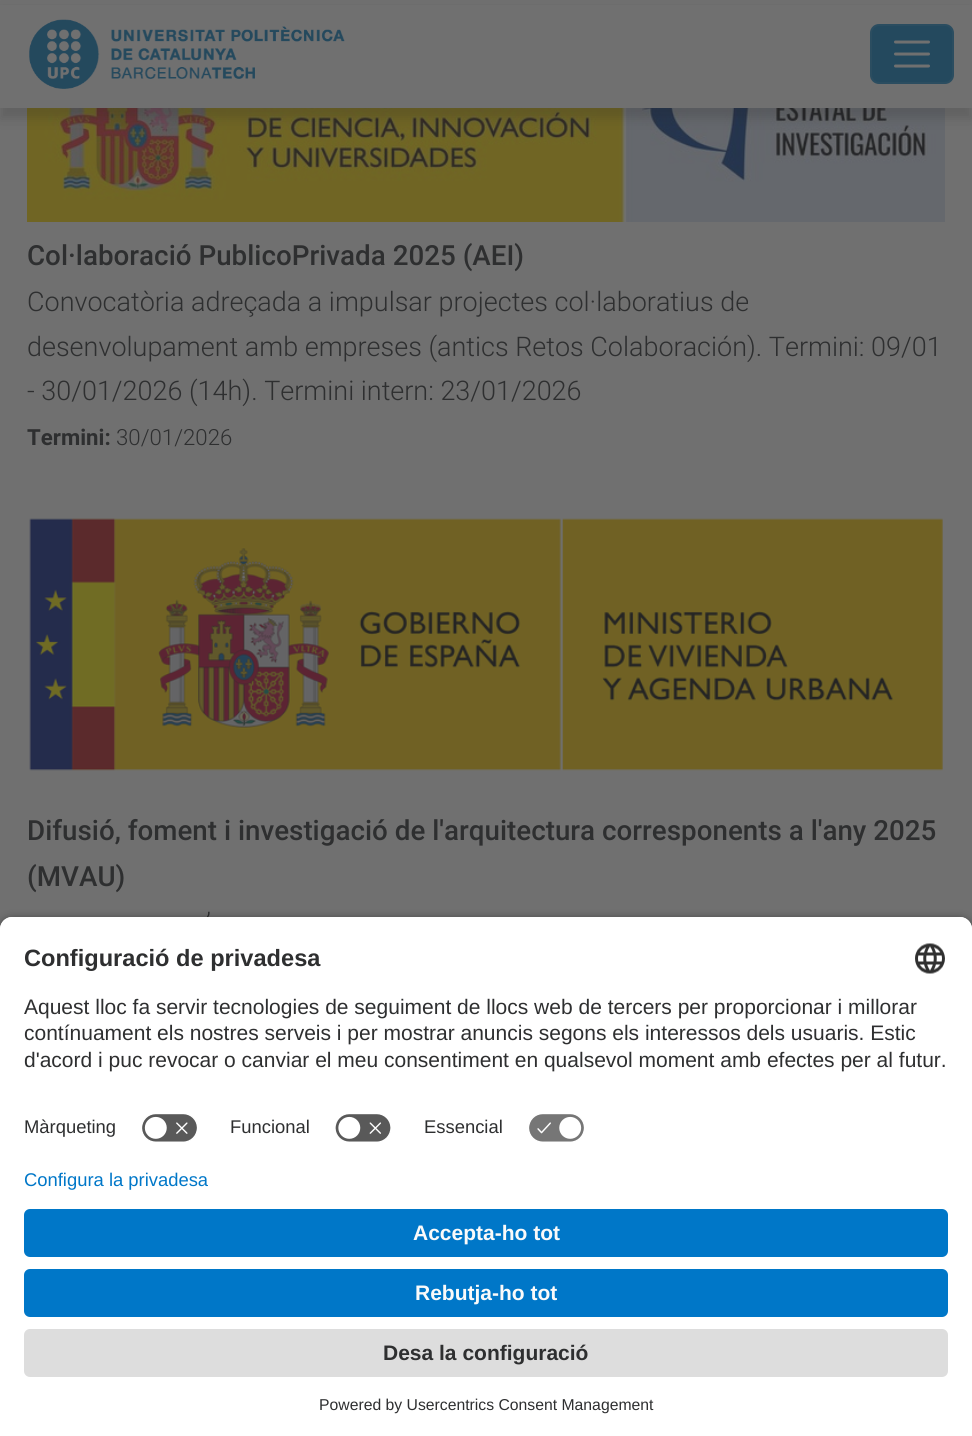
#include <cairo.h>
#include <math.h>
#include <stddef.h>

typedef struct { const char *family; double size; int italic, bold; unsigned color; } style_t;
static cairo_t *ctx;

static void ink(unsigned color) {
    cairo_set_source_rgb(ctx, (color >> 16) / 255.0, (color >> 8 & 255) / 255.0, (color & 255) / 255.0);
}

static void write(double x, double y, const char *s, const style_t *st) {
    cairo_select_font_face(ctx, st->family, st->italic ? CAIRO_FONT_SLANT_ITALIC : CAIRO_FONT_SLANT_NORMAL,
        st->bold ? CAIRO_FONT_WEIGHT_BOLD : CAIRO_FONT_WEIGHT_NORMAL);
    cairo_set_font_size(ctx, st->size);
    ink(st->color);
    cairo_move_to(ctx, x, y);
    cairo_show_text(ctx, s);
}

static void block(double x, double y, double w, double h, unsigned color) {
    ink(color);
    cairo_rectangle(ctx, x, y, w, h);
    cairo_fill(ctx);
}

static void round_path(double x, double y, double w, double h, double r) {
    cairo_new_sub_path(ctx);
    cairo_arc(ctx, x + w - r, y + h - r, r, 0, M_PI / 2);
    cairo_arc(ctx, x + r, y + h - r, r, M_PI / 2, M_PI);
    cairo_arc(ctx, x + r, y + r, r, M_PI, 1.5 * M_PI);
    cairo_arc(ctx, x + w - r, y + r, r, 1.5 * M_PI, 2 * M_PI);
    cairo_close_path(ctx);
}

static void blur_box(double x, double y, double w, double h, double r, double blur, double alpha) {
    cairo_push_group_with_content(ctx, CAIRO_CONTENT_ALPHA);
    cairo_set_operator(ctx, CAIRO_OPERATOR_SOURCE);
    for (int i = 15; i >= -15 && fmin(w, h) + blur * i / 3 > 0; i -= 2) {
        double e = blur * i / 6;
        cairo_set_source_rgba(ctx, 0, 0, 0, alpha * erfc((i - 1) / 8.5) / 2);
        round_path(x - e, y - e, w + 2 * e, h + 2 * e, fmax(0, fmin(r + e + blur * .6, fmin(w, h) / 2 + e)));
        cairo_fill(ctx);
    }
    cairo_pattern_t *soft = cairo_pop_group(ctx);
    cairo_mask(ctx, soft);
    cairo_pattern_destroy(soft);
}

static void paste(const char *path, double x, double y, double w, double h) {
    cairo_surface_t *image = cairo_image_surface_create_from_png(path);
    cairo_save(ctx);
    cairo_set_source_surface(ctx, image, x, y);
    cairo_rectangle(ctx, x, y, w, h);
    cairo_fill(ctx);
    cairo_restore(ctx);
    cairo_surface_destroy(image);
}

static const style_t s1 = {"Roboto Medium", 27.75, 0, 0, 0x2e2f30};
static const style_t s2 = {"Roboto Light", 27, 0, 0, 0x2e2f30};
static const style_t s3 = {"Roboto", 22.25, 0, 1, 0x2e2f30};
static const style_t s4 = {"Roboto Light", 22.25, 0, 0, 0x2e2f30};
static const style_t s5 = {"Liberation Sans", 23.6, 0, 1, 0x2e2f30};
static const style_t s6 = {"Liberation Sans", 21, 0, 0, 0x2e2f30};
static const style_t s7 = {"Liberation Sans", 18.4, 0, 0, 0x2e2f30};
static const style_t s8 = {"Liberation Sans", 18.4, 0, 0, 0x0077c8};
static const style_t s9 = {"Liberation Sans", 21, 0, 1, 0xfafafa};
static const style_t s10 = {"Liberation Sans", 21, 0, 1, 0x2e2f30};
static const style_t s11 = {"Liberation Sans", 15.75, 0, 0, 0x2e2f30};

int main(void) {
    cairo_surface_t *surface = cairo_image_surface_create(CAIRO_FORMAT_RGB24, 972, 1436);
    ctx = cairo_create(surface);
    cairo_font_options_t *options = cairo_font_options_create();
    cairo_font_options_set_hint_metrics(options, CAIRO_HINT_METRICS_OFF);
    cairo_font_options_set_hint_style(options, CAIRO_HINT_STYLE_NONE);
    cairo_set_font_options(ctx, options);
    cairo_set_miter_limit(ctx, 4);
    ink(0x707070);
    cairo_paint(ctx);
    paste("pic2.png", 27, 108, 918, 114);
    ink(0x242424);
    blur_box(0, 11, 972, 108, 0, 6, 0.2);
    block(0, 5, 972, 103, 0x707070);
    paste("pic1.png", 29, 19, 316, 70);
    ink(0x24495e);
    round_path(870, 24, 84, 60, 9);
    cairo_fill(ctx);
    round_path(871, 25, 82, 58, 8);
    cairo_set_source_rgba(ctx, 0.439, 0.439, 0.439, 0.1);
    cairo_stroke(ctx);
    cairo_new_path(ctx);
    cairo_move_to(ctx, 895.5, 42);
    cairo_line_to(ctx, 928.5, 42);
    cairo_move_to(ctx, 895.5, 54);
    cairo_line_to(ctx, 928.5, 54);
    cairo_move_to(ctx, 895.5, 66);
    cairo_line_to(ctx, 928.5, 66);
    ink(0x707070);
    cairo_set_line_width(ctx, 3);
    cairo_set_line_cap(ctx, CAIRO_LINE_CAP_ROUND);
    cairo_stroke(ctx);
    write(27, 265, "Col·laboració PublicoPrivada 2025 (AEI)", &s1);
    write(27, 311, "Convocatòria adreçada a impulsar projectes col·laboratius de", &s2);
    write(27, 356, "desenvolupament amb empreses (antics Retos Colaboración). Termini: 09/01", &s2);
    write(27, 400, "- 30/01/2026 (14h). Termini intern: 23/01/2026", &s2);
    write(27, 445, "Termini:", &s3);
    write(116, 445, "30/01/2026", &s4);
    paste("pic3.png", 29, 518, 914, 253);
    write(27, 840, "Difusió, foment i investigació de l'arquitectura corresponents a l'any 2025", &s1);
    write(27, 886, "(MVAU)", &s1);
    write(206, 932, "’", &s2);
    ink(0x000000);
    blur_box(0, 921, 972, 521, 12, 5, 0.8);
    ink(0xffffff);
    cairo_new_path(ctx);
    cairo_move_to(ctx, 12, 917);
    cairo_line_to(ctx, 960, 917);
    cairo_curve_to(ctx, 966.5, 917, 972, 922.5, 972, 929);
    cairo_line_to(ctx, 972, 1170);
    cairo_line_to(ctx, 0, 1170);
    cairo_line_to(ctx, 0, 929);
    cairo_curve_to(ctx, 0, 922.5, 5.5, 917, 12, 917);
    cairo_close_path(ctx);
    cairo_fill(ctx);
    cairo_new_path(ctx);
    cairo_move_to(ctx, 12, 917);
    cairo_line_to(ctx, 960, 917);
    cairo_curve_to(ctx, 966.5, 917, 972, 922.5, 972, 929);
    cairo_line_to(ctx, 972, 1104);
    cairo_line_to(ctx, 0, 1104);
    cairo_line_to(ctx, 0, 929);
    cairo_curve_to(ctx, 0, 922.5, 5.5, 917, 12, 917);
    cairo_close_path(ctx);
    cairo_fill(ctx);
    write(24, 966, "Configuració de privadesa", &s5);
    paste("pic4.png", 915, 943, 30, 31);
    write(24, 1014, "Aquest lloc fa servir tecnologies de seguiment de llocs web de tercers per proporcionar i millorar", &s6);
    write(24, 1040, "contínuament els nostres serveis i per mostrar anuncis segons els interessos dels usuaris. Estic", &s6);
    write(24, 1067, "d'acord i puc revocar o canviar el meu consentiment en qualsevol moment amb efectes per al futur.", &s6);
    write(24, 1133, "Màrqueting", &s7);
    paste("pic5.png", 142, 1114, 55, 28);
    write(230, 1133, "Funcional", &s7);
    paste("pic6.png", 335, 1114, 56, 28);
    write(424, 1133, "Essencial", &s7);
    paste("pic7.png", 529, 1114, 55, 28);
    block(0, 1170, 972, 266, 0xffffff);
    write(24, 1186, "Configura la privadesa", &s8);
    round_path(24, 1209, 924, 48, 6);
    cairo_fill(ctx);
    write(413, 1240, "Accepta-ho tot", &s9);
    ink(0x0077c8);
    round_path(24, 1269, 924, 48, 6);
    cairo_fill(ctx);
    write(415, 1300, "Rebutja-ho tot", &s9);
    ink(0xdddddd);
    round_path(24, 1329, 924, 48, 6);
    cairo_fill(ctx);
    write(383, 1360, "Desa la configuració", &s10);
    write(319, 1410, "Powered by Usercentrics Consent Management", &s11);
    cairo_surface_write_to_png(surface, "screenshot.png");
    cairo_font_options_destroy(options);
    cairo_destroy(ctx);
    cairo_surface_destroy(surface);
    return 0;
}
